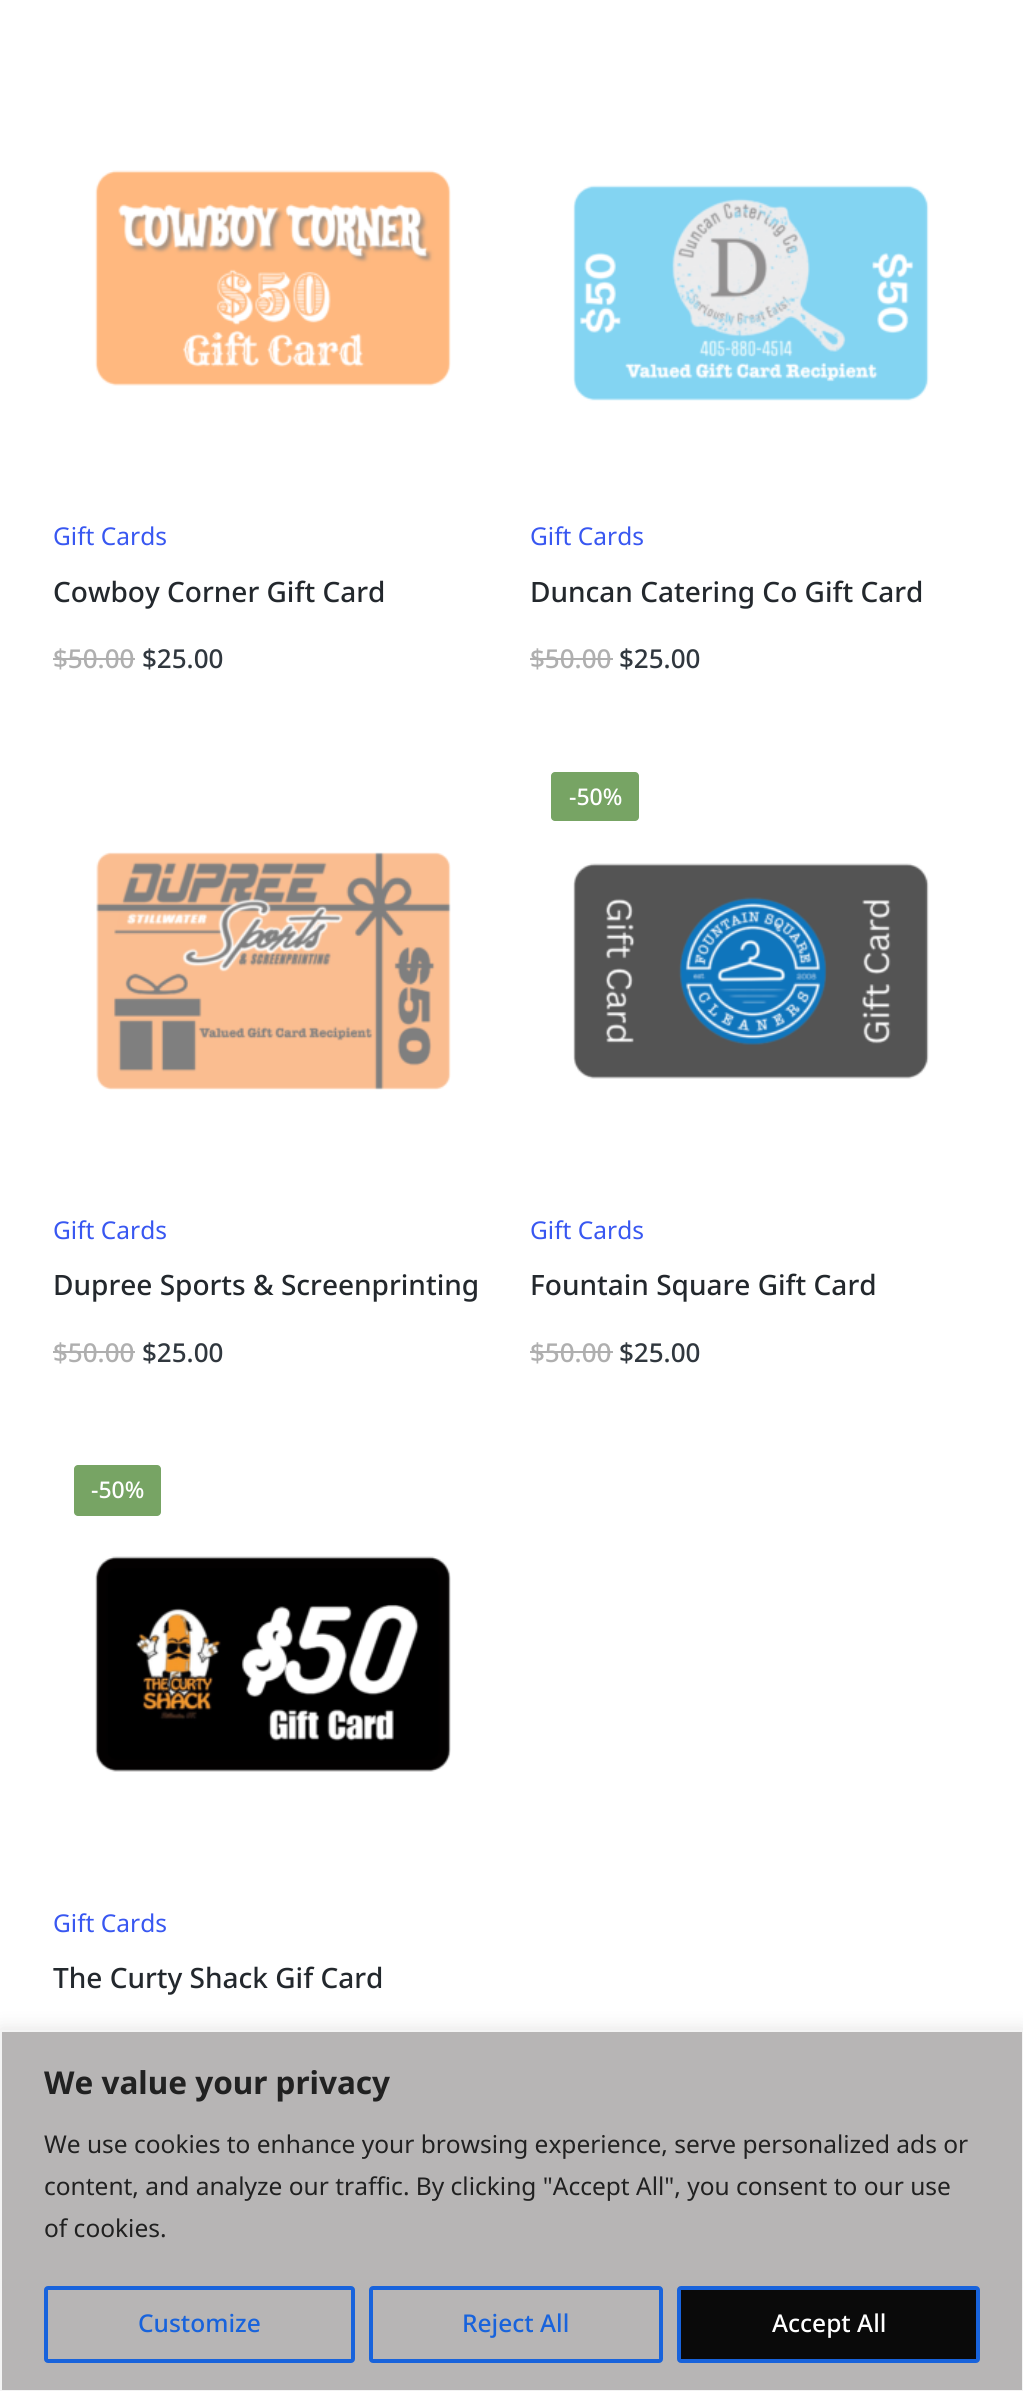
#include <cairo.h>
#include <math.h>
#include <stddef.h>

typedef struct { const char *family; double size; int italic, bold; unsigned color; } style_t;
static cairo_t *ctx;

static void ink(unsigned color) {
    cairo_set_source_rgb(ctx, (color >> 16) / 255.0, (color >> 8 & 255) / 255.0, (color & 255) / 255.0);
}

static void write(double x, double y, const char *s, const style_t *st) {
    cairo_select_font_face(ctx, st->family, st->italic ? CAIRO_FONT_SLANT_ITALIC : CAIRO_FONT_SLANT_NORMAL,
        st->bold ? CAIRO_FONT_WEIGHT_BOLD : CAIRO_FONT_WEIGHT_NORMAL);
    cairo_set_font_size(ctx, st->size);
    ink(st->color);
    cairo_move_to(ctx, x, y);
    cairo_show_text(ctx, s);
}

static void block(double x, double y, double w, double h, unsigned color) {
    ink(color);
    cairo_rectangle(ctx, x, y, w, h);
    cairo_fill(ctx);
}

static void round_path(double x, double y, double w, double h, double r) {
    cairo_new_sub_path(ctx);
    cairo_arc(ctx, x + w - r, y + h - r, r, 0, M_PI / 2);
    cairo_arc(ctx, x + r, y + h - r, r, M_PI / 2, M_PI);
    cairo_arc(ctx, x + r, y + r, r, M_PI, 1.5 * M_PI);
    cairo_arc(ctx, x + w - r, y + r, r, 1.5 * M_PI, 2 * M_PI);
    cairo_close_path(ctx);
}

static void blur_box(double x, double y, double w, double h, double r, double blur, double alpha) {
    cairo_push_group_with_content(ctx, CAIRO_CONTENT_ALPHA);
    cairo_set_operator(ctx, CAIRO_OPERATOR_SOURCE);
    for (int i = 15; i >= -15 && fmin(w, h) + blur * i / 3 > 0; i -= 2) {
        double e = blur * i / 6;
        cairo_set_source_rgba(ctx, 0, 0, 0, alpha * erfc((i - 1) / 8.5) / 2);
        round_path(x - e, y - e, w + 2 * e, h + 2 * e, fmax(0, fmin(r + e + blur * .6, fmin(w, h) / 2 + e)));
        cairo_fill(ctx);
    }
    cairo_pattern_t *soft = cairo_pop_group(ctx);
    cairo_mask(ctx, soft);
    cairo_pattern_destroy(soft);
}

static void paste(const char *path, double x, double y, double w, double h) {
    cairo_surface_t *image = cairo_image_surface_create_from_png(path);
    cairo_save(ctx);
    cairo_set_source_surface(ctx, image, x, y);
    cairo_rectangle(ctx, x, y, w, h);
    cairo_fill(ctx);
    cairo_restore(ctx);
    cairo_surface_destroy(image);
}

static const style_t s1 = {"Noto Sans", 24.5, 0, 0, 0x3857f1};
static const style_t s2 = {"Noto Sans Medium", 28, 0, 0, 0x23282d};
static const style_t s3 = {"Noto Sans Medium", 26, 0, 0, 0xafafaf};
static const style_t s4 = {"Noto Sans Medium", 26, 0, 0, 0x30373e};
static const style_t s5 = {"Noto Sans Medium", 23, 0, 0, 0xffffff};
static const style_t s6 = {"Noto Sans", 31.5, 0, 1, 0x212121};
static const style_t s7 = {"Noto Sans", 24.5, 0, 0, 0x212121};
static const style_t s8 = {"Noto Sans Medium", 24.5, 0, 0, 0x1863dc};
static const style_t s9 = {"Noto Sans Medium", 24.5, 0, 0, 0xffffff};

int main(void) {
    cairo_surface_t *surface = cairo_image_surface_create(CAIRO_FORMAT_RGB24, 1023, 2391);
    ctx = cairo_create(surface);
    cairo_font_options_t *options = cairo_font_options_create();
    cairo_font_options_set_hint_metrics(options, CAIRO_HINT_METRICS_OFF);
    cairo_font_options_set_hint_style(options, CAIRO_HINT_STYLE_NONE);
    cairo_set_font_options(ctx, options);
    cairo_set_miter_limit(ctx, 4);
    ink(0xffffff);
    cairo_paint(ctx);
    paste("pic1.png", 95, 170, 356, 216);
    write(53, 545, "Gift Cards", &s1);
    write(53, 602, "Cowboy Corner Gift Card", &s2);
    write(53, 668, "$50.00", &s3);
    block(53, 658, 82, 2, 0xafafaf);
    write(142, 668, "$25.00", &s4);
    paste("pic2.png", 573, 185, 356, 216);
    write(530, 545, "Gift Cards", &s1);
    write(530, 602, "Duncan Catering Co Gift Card", &s2);
    write(530, 668, "$50.00", &s3);
    block(530, 658, 83, 2, 0xafafaf);
    write(619, 668, "$25.00", &s4);
    paste("pic3.png", 96, 852, 355, 238);
    write(53, 1239, "Gift Cards", &s1);
    write(53, 1295, "Dupree Sports & Screenprinting", &s2);
    write(53, 1362, "$50.00", &s3);
    block(53, 1351, 82, 2, 0xafafaf);
    write(142, 1362, "$25.00", &s4);
    ink(0x77a464);
    round_path(551, 772, 88, 49, 4);
    cairo_fill(ctx);
    write(569, 805, "-50%", &s5);
    paste("pic4.png", 573, 863, 356, 216);
    write(530, 1239, "Gift Cards", &s1);
    write(530, 1295, "Fountain Square Gift Card", &s2);
    write(530, 1362, "$50.00", &s3);
    block(530, 1351, 83, 2, 0xafafaf);
    write(619, 1362, "$25.00", &s4);
    ink(0x77a464);
    round_path(74, 1465, 87, 51, 4);
    cairo_fill(ctx);
    write(91, 1498, "-50%", &s5);
    paste("pic5.png", 95, 1556, 356, 216);
    write(53, 1932, "Gift Cards", &s1);
    write(53, 1988, "The Curty Shack Gif Card", &s2);
    ink(0xacabab);
    blur_box(0, 2028, 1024, 363, 0, 9, 0.3);
    ink(0xb7b5b5);
    cairo_rectangle(ctx, 1, 2031, 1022, 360);
    cairo_fill_preserve(ctx);
    ink(0xf4f4f4);
    cairo_stroke(ctx);
    write(44, 2094, "We value your privacy", &s6);
    write(44, 2153, "We use cookies to enhance your browsing experience, serve personalized ads or", &s7);
    write(44, 2195, "content, and analyze our traffic. By clicking \"Accept All\", you consent to our use", &s7);
    write(44, 2237, "of cookies.", &s7);
    round_path(46, 2288, 307, 73, 2);
    ink(0x1863dc);
    cairo_set_line_width(ctx, 4);
    cairo_stroke(ctx);
    write(138, 2332, "Customize", &s8);
    round_path(371, 2288, 290, 73, 2);
    cairo_stroke(ctx);
    write(462, 2332, "Reject All", &s8);
    ink(0x0a0a0a);
    round_path(679, 2288, 299, 73, 2);
    cairo_fill_preserve(ctx);
    ink(0x1863dc);
    cairo_stroke(ctx);
    write(772, 2332, "Accept All", &s9);
    cairo_surface_write_to_png(surface, "screenshot.png");
    cairo_font_options_destroy(options);
    cairo_destroy(ctx);
    cairo_surface_destroy(surface);
    return 0;
}
